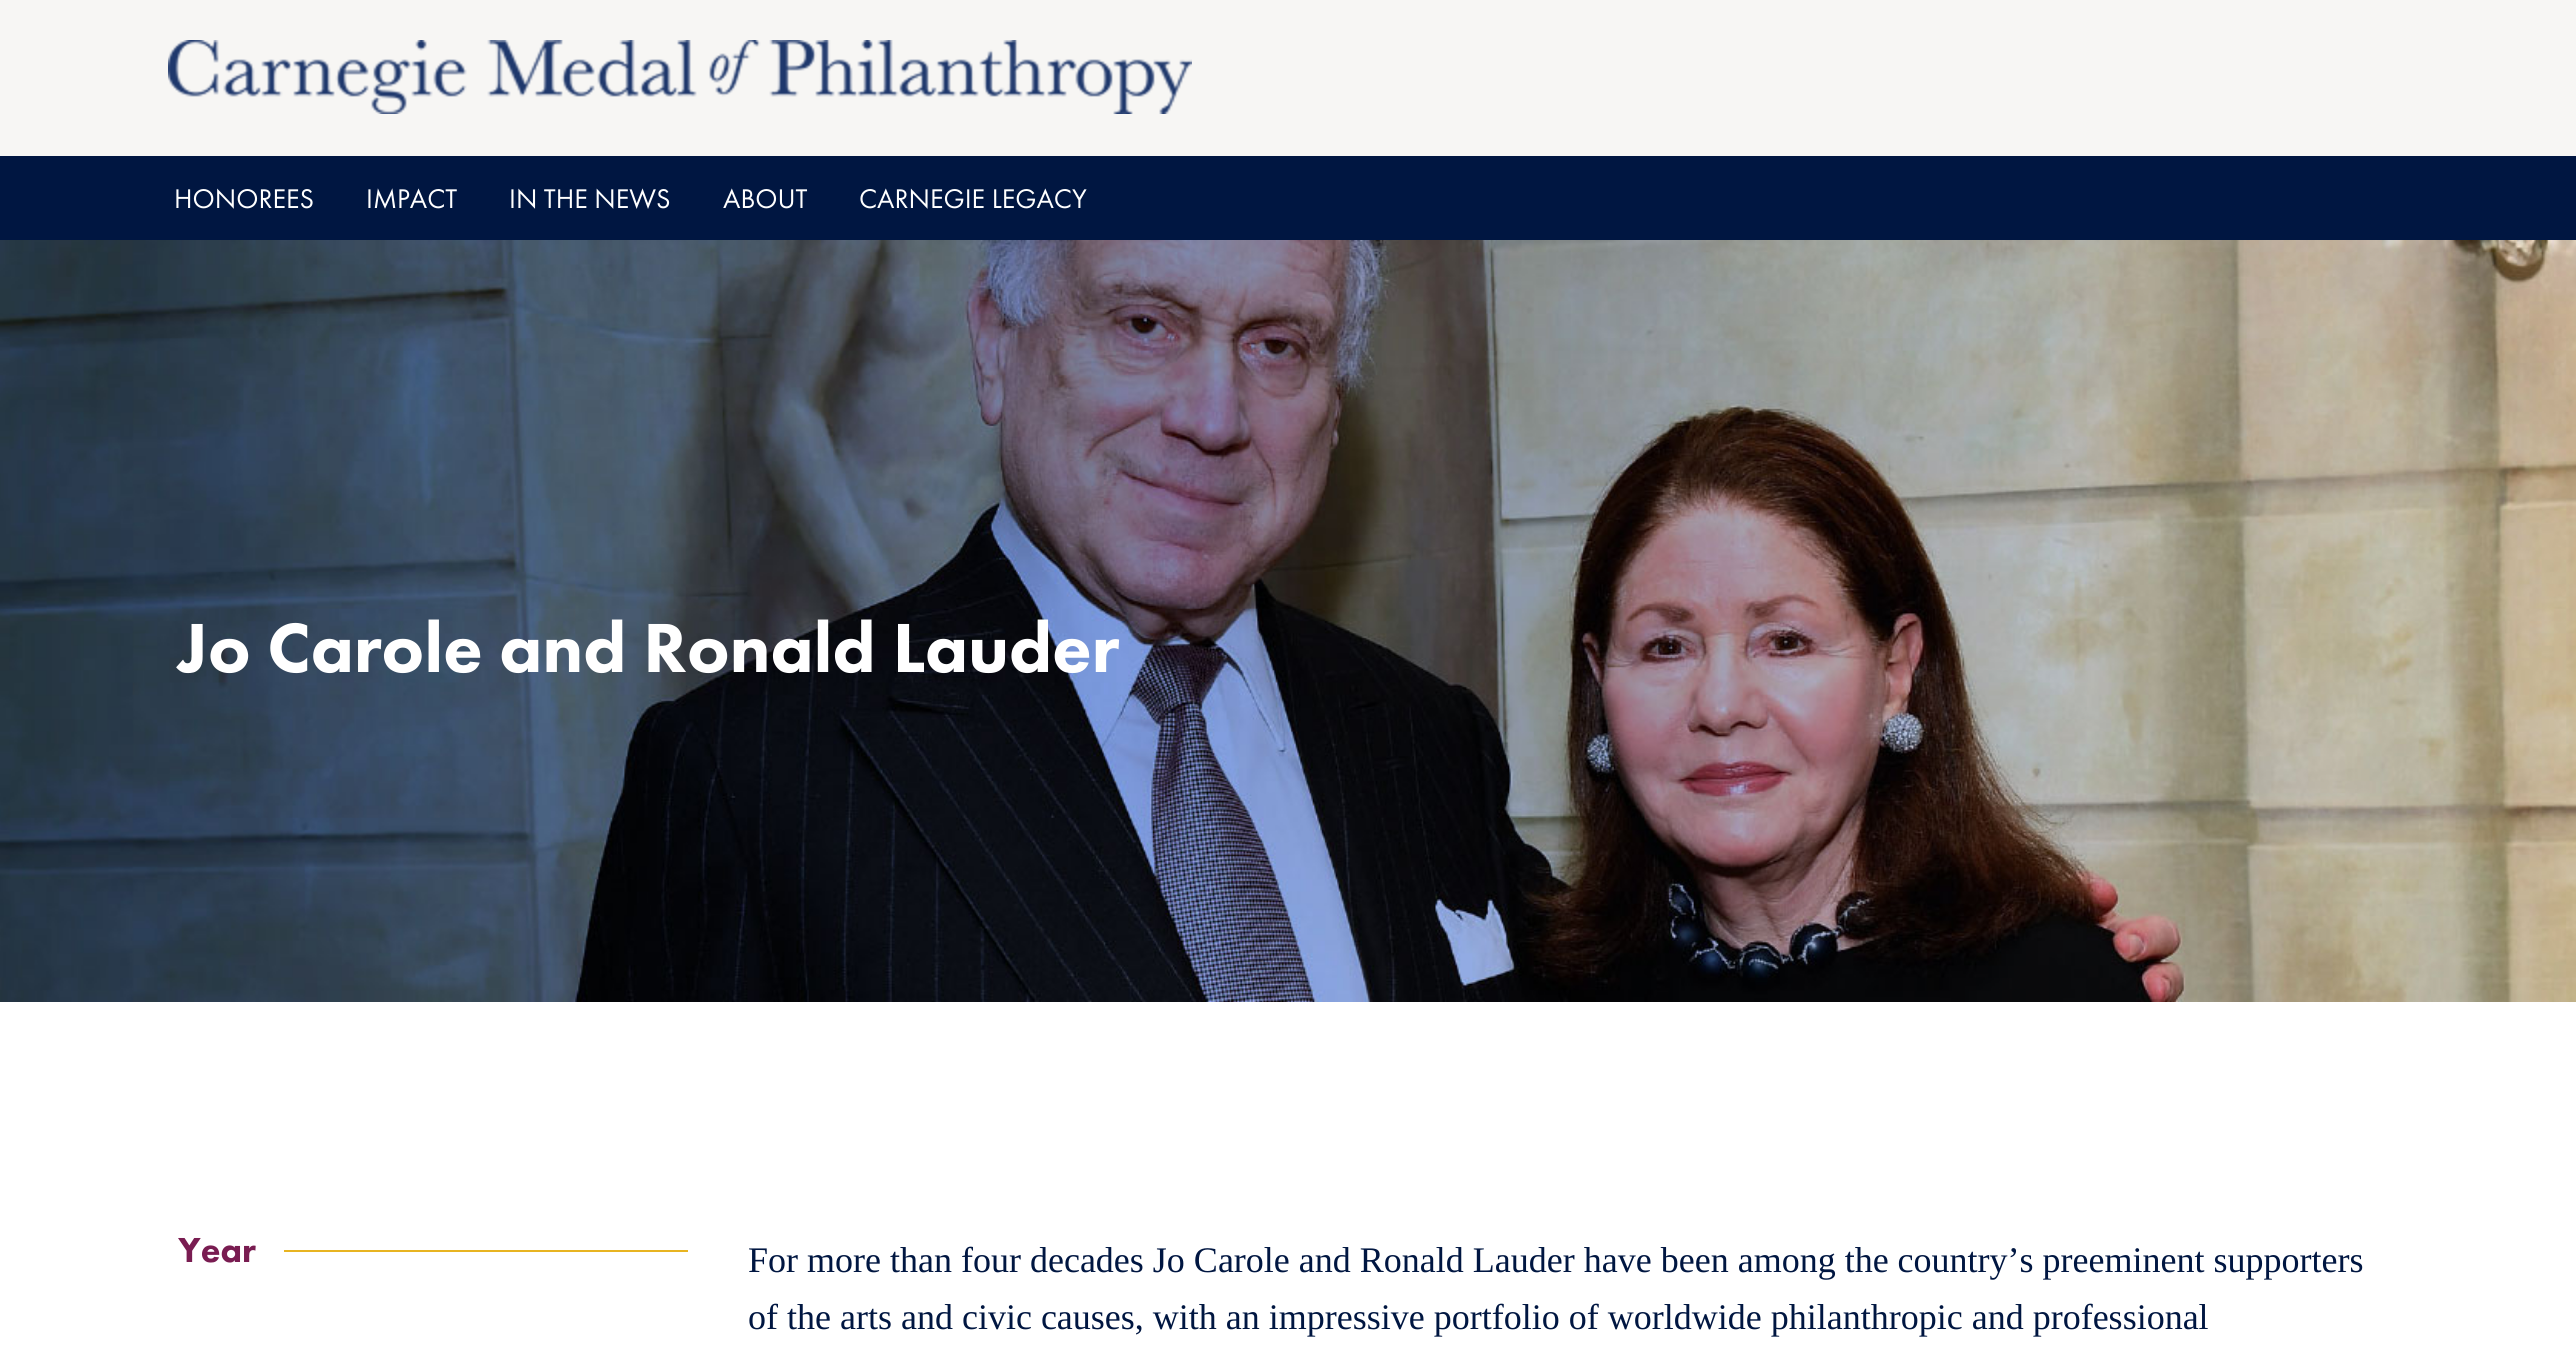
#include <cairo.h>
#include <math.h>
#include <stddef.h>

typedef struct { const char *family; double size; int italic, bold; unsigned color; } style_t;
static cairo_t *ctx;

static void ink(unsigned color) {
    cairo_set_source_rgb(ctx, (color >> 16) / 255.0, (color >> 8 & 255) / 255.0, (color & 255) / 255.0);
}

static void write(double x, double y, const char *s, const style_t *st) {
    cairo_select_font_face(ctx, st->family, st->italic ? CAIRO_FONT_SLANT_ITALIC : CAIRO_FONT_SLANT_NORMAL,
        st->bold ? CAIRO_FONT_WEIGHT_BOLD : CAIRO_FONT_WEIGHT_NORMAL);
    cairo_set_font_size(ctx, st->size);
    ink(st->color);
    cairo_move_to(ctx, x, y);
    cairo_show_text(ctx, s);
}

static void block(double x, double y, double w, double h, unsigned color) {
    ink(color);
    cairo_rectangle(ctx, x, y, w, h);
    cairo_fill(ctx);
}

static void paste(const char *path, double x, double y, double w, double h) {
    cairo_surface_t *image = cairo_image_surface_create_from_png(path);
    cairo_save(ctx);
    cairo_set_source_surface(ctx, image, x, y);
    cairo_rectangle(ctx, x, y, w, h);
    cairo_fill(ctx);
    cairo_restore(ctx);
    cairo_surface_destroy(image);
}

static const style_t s1 = {"Futura PT", 28, 0, 0, 0xffffff};
static const style_t s2 = {"Futura PT Black", 72, 0, 0, 0xffffff};
static const style_t s3 = {"Futura PT Black", 36, 0, 0, 0x791c51};
static const style_t s4 = {"Liberation Serif", 36, 0, 0, 0x001641};

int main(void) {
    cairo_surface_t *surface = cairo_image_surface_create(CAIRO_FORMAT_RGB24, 2576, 1347);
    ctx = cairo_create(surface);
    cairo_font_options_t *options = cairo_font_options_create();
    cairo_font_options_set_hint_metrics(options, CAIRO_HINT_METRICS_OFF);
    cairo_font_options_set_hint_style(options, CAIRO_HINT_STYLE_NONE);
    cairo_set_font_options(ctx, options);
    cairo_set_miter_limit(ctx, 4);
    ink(0xffffff);
    cairo_paint(ctx);
    block(0, 0, 2576, 156, 0xf7f6f4);
    paste("pic1.png", 168, 40, 1024, 74);
    block(0, 156, 2576, 84, 0x001641);
    write(174, 208, "HONOREES", &s1);
    write(366, 208, "IMPACT", &s1);
    write(509, 208, "IN THE NEWS", &s1);
    write(723, 208, "ABOUT", &s1);
    write(859, 208, "CARNEGIE LEGACY", &s1);
    paste("pic2.png", 0, 240, 2576, 762);
    write(178, 672, "Jo Carole and Ronald Lauder", &s2);
    write(178, 1262, "Year", &s3);
    block(284, 1250, 404, 2, 0xe8b421);
    write(748, 1272, "For more than four decades Jo Carole and Ronald Lauder have been among the country’s preeminent supporters", &s4);
    write(748, 1329, "of the arts and civic causes, with an impressive portfolio of worldwide philanthropic and professional", &s4);
    cairo_surface_write_to_png(surface, "screenshot.png");
    cairo_font_options_destroy(options);
    cairo_destroy(ctx);
    cairo_surface_destroy(surface);
    return 0;
}
